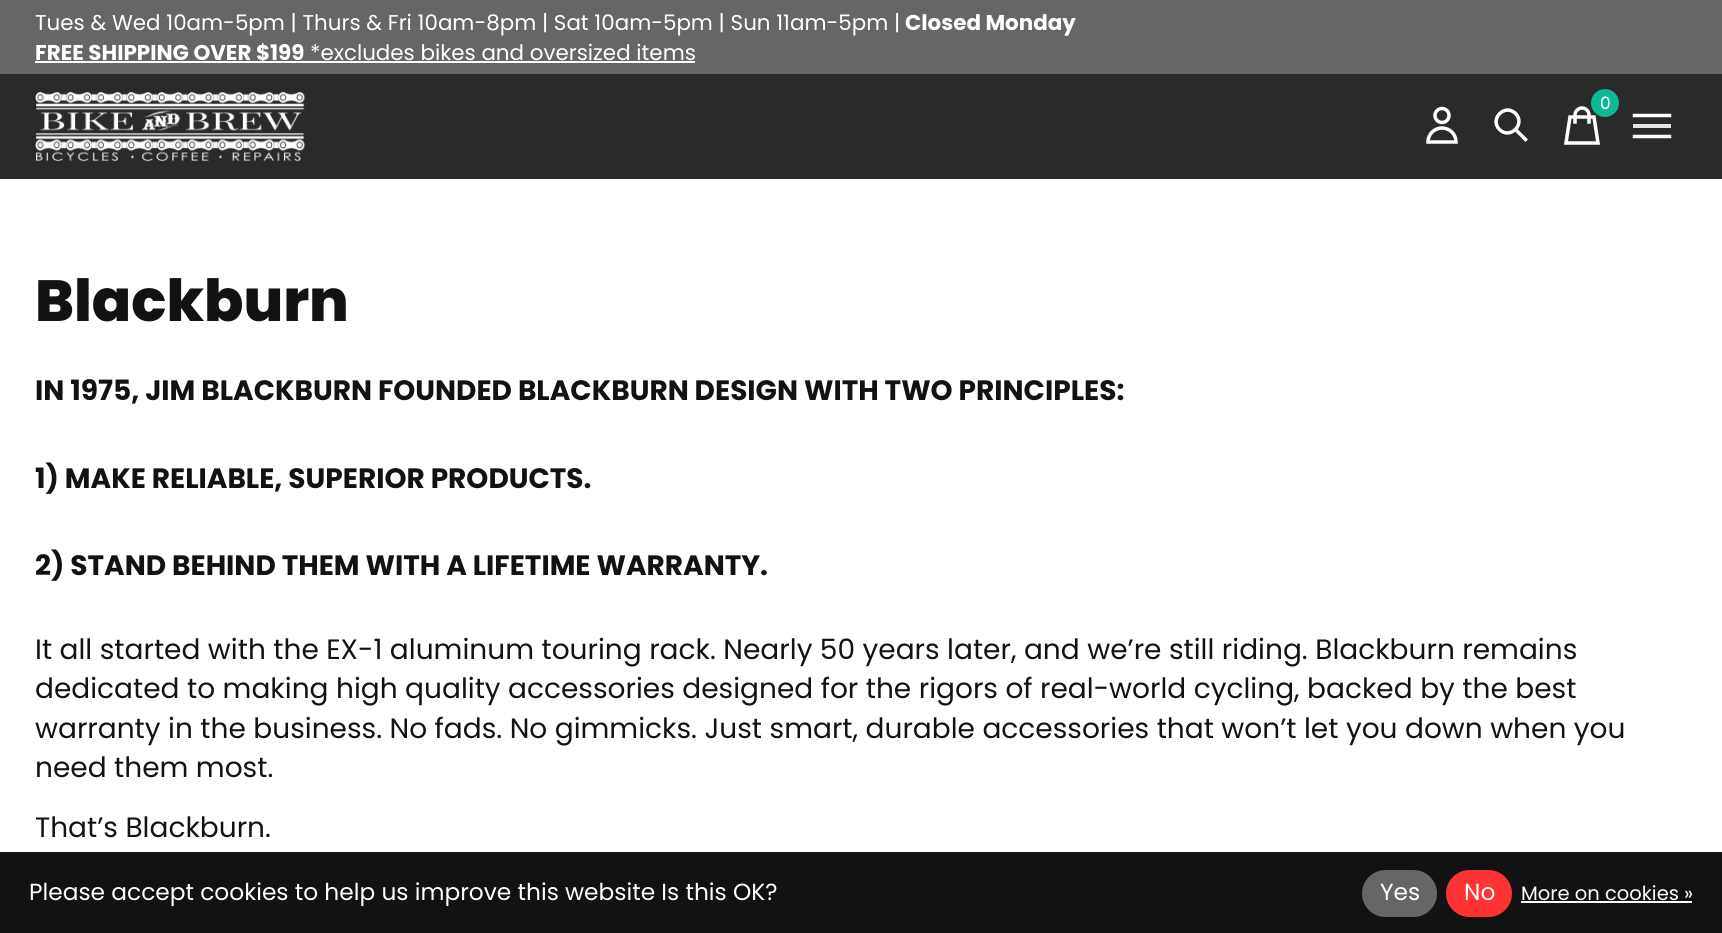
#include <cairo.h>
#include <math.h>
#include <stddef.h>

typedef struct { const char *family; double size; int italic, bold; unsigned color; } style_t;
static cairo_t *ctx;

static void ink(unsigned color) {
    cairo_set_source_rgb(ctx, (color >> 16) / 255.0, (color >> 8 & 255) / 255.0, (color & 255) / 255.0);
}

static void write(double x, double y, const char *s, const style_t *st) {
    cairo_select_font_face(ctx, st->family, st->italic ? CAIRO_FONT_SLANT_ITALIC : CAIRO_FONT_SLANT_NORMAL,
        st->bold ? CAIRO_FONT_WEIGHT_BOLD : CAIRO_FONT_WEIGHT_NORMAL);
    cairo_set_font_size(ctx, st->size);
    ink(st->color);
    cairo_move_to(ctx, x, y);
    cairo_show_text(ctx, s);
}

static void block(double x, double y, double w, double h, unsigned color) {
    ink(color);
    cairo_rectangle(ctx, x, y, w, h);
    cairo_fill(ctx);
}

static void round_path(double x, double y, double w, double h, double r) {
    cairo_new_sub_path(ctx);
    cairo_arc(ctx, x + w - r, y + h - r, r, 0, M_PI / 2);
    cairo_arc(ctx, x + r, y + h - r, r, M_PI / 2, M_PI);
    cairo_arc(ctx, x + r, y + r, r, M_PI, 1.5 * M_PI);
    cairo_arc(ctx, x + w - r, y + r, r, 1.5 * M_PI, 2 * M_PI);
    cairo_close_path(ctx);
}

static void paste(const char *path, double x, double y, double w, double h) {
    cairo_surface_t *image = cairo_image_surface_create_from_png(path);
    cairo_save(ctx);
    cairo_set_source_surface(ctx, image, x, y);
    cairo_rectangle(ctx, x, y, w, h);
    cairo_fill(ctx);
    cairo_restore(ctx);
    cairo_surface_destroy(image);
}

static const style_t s1 = {"Poppins", 21.4, 0, 0, 0xffffff};
static const style_t s2 = {"Poppins", 21.4, 0, 1, 0xffffff};
static const style_t s3 = {"Poppins", 17, 0, 0, 0xffffff};
static const style_t s4 = {"Poppins ExtraBold", 58, 0, 0, 0x121212};
static const style_t s5 = {"Poppins", 28, 0, 1, 0x121212};
static const style_t s6 = {"Poppins", 28, 0, 0, 0x121212};
static const style_t s7 = {"Poppins", 23.3, 0, 0, 0xffffff};
static const style_t s8 = {"Poppins", 19.5, 0, 0, 0xffffff};

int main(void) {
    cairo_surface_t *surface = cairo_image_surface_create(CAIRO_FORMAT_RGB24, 1722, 933);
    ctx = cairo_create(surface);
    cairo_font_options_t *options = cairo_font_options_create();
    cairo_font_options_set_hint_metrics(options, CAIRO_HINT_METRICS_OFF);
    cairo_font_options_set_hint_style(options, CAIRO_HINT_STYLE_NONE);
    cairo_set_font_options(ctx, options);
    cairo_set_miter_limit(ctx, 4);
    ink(0xffffff);
    cairo_paint(ctx);
    block(0, 0, 1722, 74, 0x666666);
    write(35, 30, "Tues & Wed 10am-5pm | Thurs & Fri 10am-8pm | Sat 10am-5pm | Sun 11am-5pm |", &s1);
    write(905, 30, "Closed Monday", &s2);
    block(35, 61, 660, 2, 0xffffff);
    write(35, 60, "FREE SHIPPING OVER $199", &s2);
    write(310, 60, "*excludes bikes and oversized items", &s1);
    block(0, 74, 1722, 105, 0x2a2a2a);
    paste("pic1.png", 35, 92, 270, 70);
    cairo_new_path(ctx);
    cairo_move_to(ctx, 1598, 143);
    cairo_line_to(ctx, 1566, 143);
    cairo_line_to(ctx, 1570, 117);
    cairo_line_to(ctx, 1594, 117);
    cairo_close_path(ctx);
    cairo_move_to(ctx, 1575, 122);
    cairo_line_to(ctx, 1575, 115);
    cairo_curve_to(ctx, 1575, 111.5, 1578, 108, 1582, 108);
    cairo_curve_to(ctx, 1586, 108, 1589, 111.5, 1589, 115);
    cairo_line_to(ctx, 1589, 122);
    ink(0xffffff);
    cairo_set_line_width(ctx, 3.5);
    cairo_set_line_cap(ctx, CAIRO_LINE_CAP_SQUARE);
    cairo_stroke(ctx);
    ink(0x0eb994);
    cairo_arc(ctx, 1605, 103, 14, 0, 2 * M_PI);
    cairo_fill(ctx);
    write(1600, 109, "0", &s3);
    cairo_new_path(ctx);
    cairo_arc(ctx, 1442, 115.5, 7, 0, 2 * M_PI);
    cairo_set_line_cap(ctx, CAIRO_LINE_CAP_BUTT);
    cairo_stroke(ctx);
    cairo_new_path(ctx);
    cairo_move_to(ctx, 1442, 128);
    cairo_curve_to(ctx, 1434.5, 128, 1428, 134, 1428, 142);
    cairo_line_to(ctx, 1456, 142);
    cairo_curve_to(ctx, 1456, 134, 1449.5, 128, 1442, 128);
    cairo_close_path(ctx);
    cairo_set_line_cap(ctx, CAIRO_LINE_CAP_SQUARE);
    cairo_stroke(ctx);
    cairo_new_path(ctx);
    cairo_move_to(ctx, 1515.5, 129.5);
    cairo_line_to(ctx, 1525.5, 139.5);
    cairo_move_to(ctx, 1515.5, 113.5);
    cairo_curve_to(ctx, 1526, 124, 1510, 140, 1499.5, 129.5);
    cairo_curve_to(ctx, 1489, 119, 1505, 103, 1515.5, 113.5);
    cairo_stroke(ctx);
    cairo_new_path(ctx);
    cairo_move_to(ctx, 1634.5, 115.5);
    cairo_line_to(ctx, 1669.5, 115.5);
    cairo_stroke(ctx);
    block(1633, 124, 38, 4, 0xe4e4e4);
    cairo_new_path(ctx);
    cairo_move_to(ctx, 1634.5, 136.5);
    cairo_line_to(ctx, 1669.5, 136.5);
    ink(0xffffff);
    cairo_stroke(ctx);
    write(35, 321, "Blackburn", &s4);
    write(35, 400, "IN 1975, JIM BLACKBURN FOUNDED BLACKBURN DESIGN WITH TWO PRINCIPLES:", &s5);
    write(35, 488, "1) MAKE RELIABLE, SUPERIOR PRODUCTS.", &s5);
    write(35, 575, "2) STAND BEHIND THEM WITH A LIFETIME WARRANTY.", &s5);
    write(35, 659, "It all started with the EX-1 aluminum touring rack. Nearly 50 years later, and we’re still riding. Blackburn remains", &s6);
    write(35, 698, "dedicated to making high quality accessories designed for the rigors of real-world cycling, backed by the best", &s6);
    write(35, 738, "warranty in the business. No fads. No gimmicks. Just smart, durable accessories that won’t let you down when you", &s6);
    write(35, 777, "need them most.", &s6);
    write(35, 837, "That’s Blackburn.", &s6);
    block(0, 852, 1722, 81, 0x121212);
    write(29, 900, "Please accept cookies to help us improve this website Is this OK?", &s7);
    ink(0x666666);
    round_path(1362, 870, 75, 47, 23.5);
    cairo_fill(ctx);
    write(1380, 900, "Yes", &s7);
    ink(0xff3333);
    round_path(1446, 870, 66, 47, 23.5);
    cairo_fill(ctx);
    write(1464, 900, "No", &s7);
    write(1521, 900, "More on cookies »", &s8);
    block(1521, 901, 171, 2, 0xffffff);
    cairo_surface_write_to_png(surface, "screenshot.png");
    cairo_font_options_destroy(options);
    cairo_destroy(ctx);
    cairo_surface_destroy(surface);
    return 0;
}
